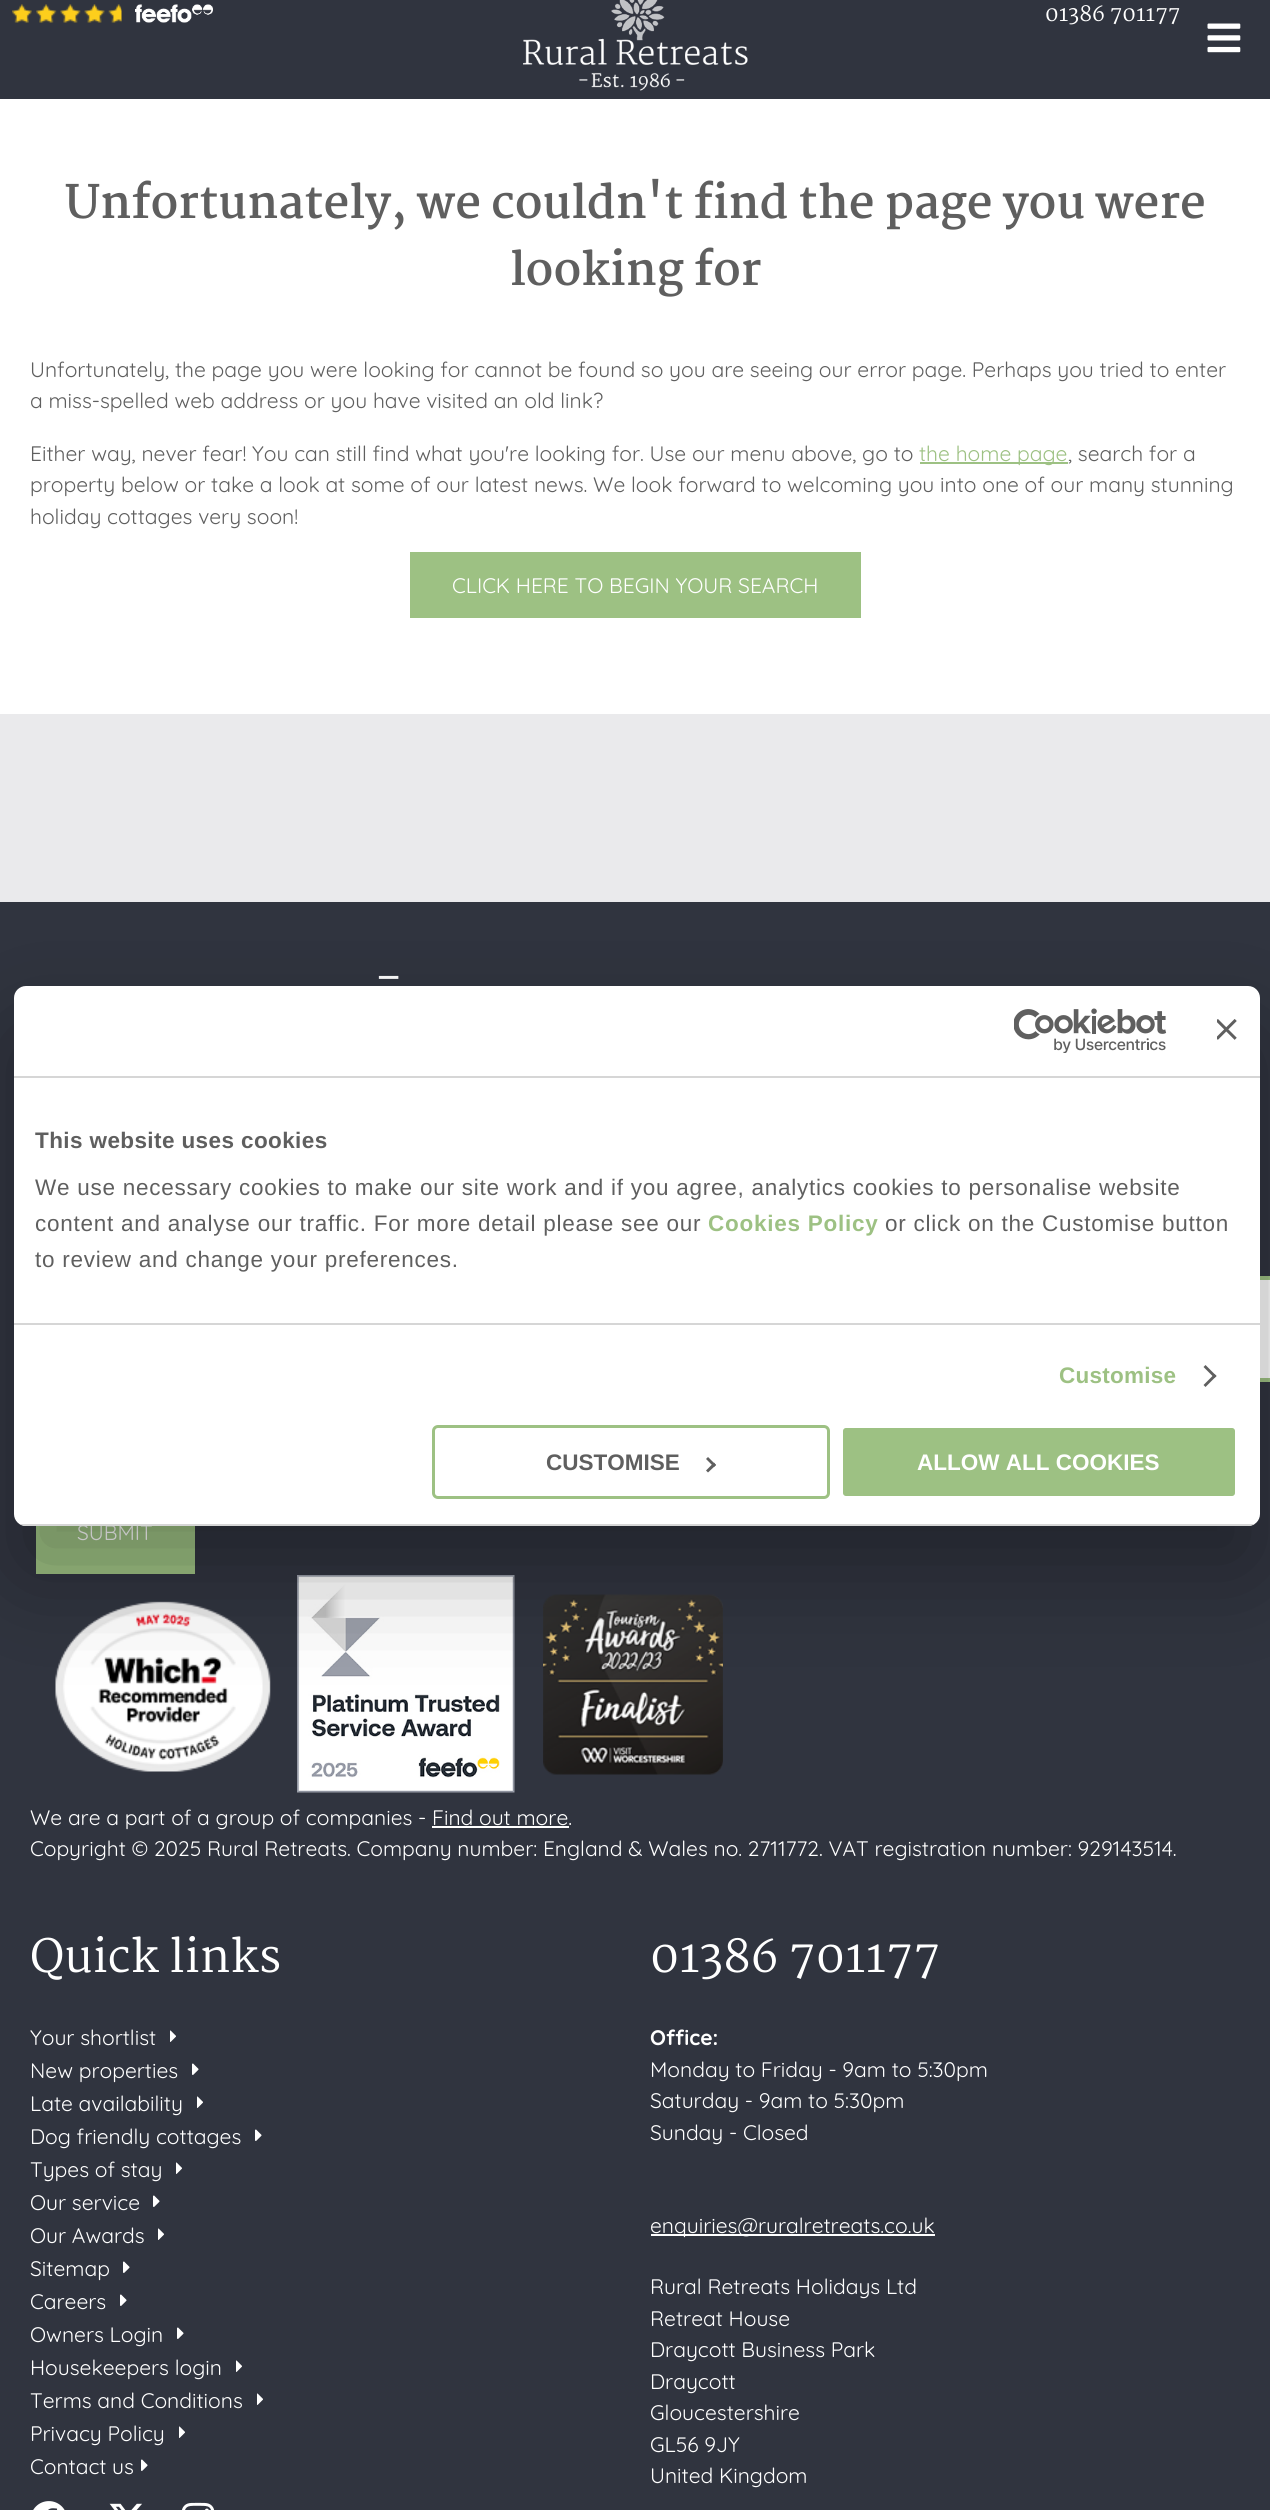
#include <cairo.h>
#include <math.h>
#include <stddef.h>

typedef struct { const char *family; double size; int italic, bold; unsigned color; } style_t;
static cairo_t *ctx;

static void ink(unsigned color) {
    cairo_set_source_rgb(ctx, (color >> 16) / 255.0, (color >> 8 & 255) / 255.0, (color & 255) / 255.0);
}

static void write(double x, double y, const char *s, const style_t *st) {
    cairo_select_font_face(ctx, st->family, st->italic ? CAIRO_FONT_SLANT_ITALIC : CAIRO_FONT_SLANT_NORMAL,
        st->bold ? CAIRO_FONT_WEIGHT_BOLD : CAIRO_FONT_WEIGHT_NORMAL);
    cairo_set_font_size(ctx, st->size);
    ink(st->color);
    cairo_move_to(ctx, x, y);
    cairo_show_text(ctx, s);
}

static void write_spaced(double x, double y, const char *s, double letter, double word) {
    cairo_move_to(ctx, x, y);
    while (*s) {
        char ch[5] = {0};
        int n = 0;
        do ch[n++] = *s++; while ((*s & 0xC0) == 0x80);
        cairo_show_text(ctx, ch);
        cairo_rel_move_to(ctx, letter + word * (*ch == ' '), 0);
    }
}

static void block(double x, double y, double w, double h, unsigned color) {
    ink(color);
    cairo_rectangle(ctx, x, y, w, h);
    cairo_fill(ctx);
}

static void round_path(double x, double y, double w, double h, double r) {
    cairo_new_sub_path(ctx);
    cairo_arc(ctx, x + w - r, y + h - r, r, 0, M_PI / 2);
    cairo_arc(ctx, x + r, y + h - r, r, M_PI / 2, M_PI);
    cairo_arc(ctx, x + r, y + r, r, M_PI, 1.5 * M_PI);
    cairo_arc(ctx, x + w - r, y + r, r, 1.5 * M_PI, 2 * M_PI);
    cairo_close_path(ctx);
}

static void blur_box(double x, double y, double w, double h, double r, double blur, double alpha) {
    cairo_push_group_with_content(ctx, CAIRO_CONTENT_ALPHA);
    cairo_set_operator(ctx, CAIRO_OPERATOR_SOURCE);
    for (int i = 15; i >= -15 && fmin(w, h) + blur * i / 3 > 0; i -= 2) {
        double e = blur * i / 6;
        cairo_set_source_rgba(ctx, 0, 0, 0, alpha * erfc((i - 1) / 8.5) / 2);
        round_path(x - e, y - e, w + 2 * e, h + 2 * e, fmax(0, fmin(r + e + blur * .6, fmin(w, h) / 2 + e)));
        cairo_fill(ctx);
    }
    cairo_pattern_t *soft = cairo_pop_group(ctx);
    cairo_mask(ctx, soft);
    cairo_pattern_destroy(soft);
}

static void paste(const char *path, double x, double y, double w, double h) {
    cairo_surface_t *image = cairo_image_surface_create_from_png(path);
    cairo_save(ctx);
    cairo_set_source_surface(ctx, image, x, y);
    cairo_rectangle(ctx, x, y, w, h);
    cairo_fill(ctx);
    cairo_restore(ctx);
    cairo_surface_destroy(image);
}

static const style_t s1 = {"Martel", 21, 0, 0, 0xffffff};
static const style_t s2 = {"Martel", 45, 0, 1, 0x5f5f5f};
static const style_t s3 = {"Quicksand", 21, 0, 0, 0x5f5f5f};
static const style_t s4 = {"Quicksand", 21, 0, 0, 0x9dc183};
static const style_t s5 = {"Quicksand", 21, 0, 0, 0xffffff};
static const style_t s6 = {"Martel", 45, 0, 0, 0xffffff};
static const style_t s7 = {"Quicksand", 21, 0, 1, 0xffffff};
static const style_t s8 = {"Liberation Sans", 22.5, 0, 1, 0x5f5f5f};
static const style_t s9 = {"Liberation Sans", 22.5, 0, 1, 0xffffff};

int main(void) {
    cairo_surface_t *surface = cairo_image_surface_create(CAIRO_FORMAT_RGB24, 1270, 2510);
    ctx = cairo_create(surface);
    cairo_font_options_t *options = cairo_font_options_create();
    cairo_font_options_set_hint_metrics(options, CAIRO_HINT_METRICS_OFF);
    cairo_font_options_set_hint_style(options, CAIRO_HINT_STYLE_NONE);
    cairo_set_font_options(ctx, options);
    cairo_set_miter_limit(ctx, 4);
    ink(0xffffff);
    cairo_paint(ctx);
    block(0, 0, 1270, 99, 0x30343f);
    paste("pic1.png", 12, 4, 110, 19);
    paste("pic2.png", 135, 4, 78, 19);
    paste("pic3.png", 523, 0, 225, 91);
    write(1045, 21, "01386 701177", &s1);
    paste("pic4.png", 1207, 23, 34, 30);
    write(65, 218, "Unfortunately, we couldn't find the page you were", &s2);
    write(510, 285, "looking for", &s2);
    write(30, 377, "Unfortunately, the page you were looking for cannot be found so you are seeing our error page. Perhaps you tried to enter", &s3);
    write(30, 408, "a miss-spelled web address or you have visited an old link?", &s3);
    write(30, 461, "Either way, never fear! You can still find what you're looking for. Use our menu above, go to", &s3);
    block(920, 462, 148, 2, 0x9dc183);
    write(919, 461, "the home page", &s4);
    write(1068, 461, ", search for a", &s3);
    write(30, 492, "property below or take a look at some of our latest news. We look forward to welcoming you into one of our many stunning", &s3);
    write(30, 524, "holiday cottages very soon!", &s3);
    block(410, 552, 451, 66, 0x9dc183);
    write(452, 593, "CLICK HERE TO BEGIN YOUR SEARCH", &s5);
    block(0, 714, 1270, 188, 0xeaeaec);
    block(0, 902, 1270, 1608, 0x30343f);
    write(375, 995, "-", &s6);
    block(36, 1526, 159, 48, 0x9dc183);
    write(77, 1540, "SUBMIT", &s5);
    paste("pic5.png", 55, 1601, 216, 171);
    paste("pic6.png", 297, 1575, 218, 218);
    paste("pic7.png", 543, 1594, 180, 181);
    write(30, 1825, "We are a part of a group of companies - Find out more.", &s5);
    block(432, 1826, 137, 2, 0xffffff);
    write(30, 1856, "Copyright © 2025 Rural Retreats. Company number: England & Wales no. 2711772. VAT registration number: 929143514.", &s5);
    write(30, 1972, "Quick links", &s6);
    write(30, 2045, "Your shortlist", &s5);
    paste("pic8.png", 170, 2030, 6, 12);
    write(30, 2078, "New properties", &s5);
    paste("pic9.png", 192, 2063, 7, 12);
    write(30, 2111, "Late availability", &s5);
    paste("pic8.png", 197, 2096, 6, 12);
    write(30, 2144, "Dog friendly cottages", &s5);
    paste("pic9.png", 255, 2129, 7, 12);
    write(30, 2177, "Types of stay", &s5);
    paste("pic8.png", 176, 2162, 6, 12);
    write(30, 2210, "Our service", &s5);
    paste("pic9.png", 153, 2195, 7, 12);
    write(30, 2243, "Our Awards", &s5);
    paste("pic8.png", 158, 2228, 6, 12);
    write(30, 2276, "Sitemap", &s5);
    paste("pic10.png", 123, 2261, 7, 12);
    write(30, 2309, "Careers", &s5);
    paste("pic9.png", 120, 2294, 7, 12);
    write(30, 2342, "Owners Login", &s5);
    paste("pic9.png", 177, 2327, 7, 12);
    write(30, 2375, "Housekeepers login", &s5);
    paste("pic8.png", 236, 2360, 6, 12);
    write(30, 2408, "Terms and Conditions", &s5);
    paste("pic8.png", 257, 2393, 6, 12);
    write(30, 2441, "Privacy Policy", &s5);
    paste("pic8.png", 179, 2426, 6, 12);
    write(30, 2474, "Contact us", &s5);
    paste("pic9.png", 141, 2459, 7, 12);
    paste("pic11.png", 33, 2501, 32, 9);
    paste("pic12.png", 109, 2503, 33, 7);
    paste("pic13.png", 182, 2502, 32, 8);
    write(650, 1972, "01386 701177", &s6);
    write(650, 2045, "Office:", &s7);
    write(650, 2077, "Monday to Friday - 9am to 5:30pm", &s5);
    write(650, 2108, "Saturday - 9am to 5:30pm", &s5);
    write(650, 2140, "Sunday - Closed", &s5);
    block(651, 2234, 284, 2, 0xffffff);
    write(650, 2233, "enquiries@ruralretreats.co.uk", &s5);
    write(650, 2294, "Rural Retreats Holidays Ltd", &s5);
    write(650, 2326, "Retreat House", &s5);
    write(650, 2357, "Draycott Business Park", &s5);
    write(650, 2389, "Draycott", &s5);
    write(650, 2420, "Gloucestershire", &s5);
    write(650, 2452, "GL56 9JY", &s5);
    write(650, 2483, "United Kingdom", &s5);
    block(1260, 1280, 10, 98, 0xfafafa);
    ink(0x9dc183);
    cairo_set_fill_rule(ctx, CAIRO_FILL_RULE_EVEN_ODD);
    cairo_new_path(ctx);
    cairo_move_to(ctx, 1210, 1276);
    cairo_line_to(ctx, 1270, 1276);
    cairo_line_to(ctx, 1270, 1382);
    cairo_line_to(ctx, 1210, 1382);
    cairo_curve_to(ctx, 1206, 1382, 1203, 1378, 1203, 1374);
    cairo_line_to(ctx, 1203, 1284);
    cairo_curve_to(ctx, 1203, 1280, 1206, 1276, 1210, 1276);
    cairo_close_path(ctx);
    cairo_move_to(ctx, 1210, 1280);
    cairo_line_to(ctx, 1270, 1280);
    cairo_line_to(ctx, 1270, 1378);
    cairo_line_to(ctx, 1210, 1378);
    cairo_curve_to(ctx, 1208, 1378, 1206, 1376, 1206, 1374);
    cairo_line_to(ctx, 1206, 1284);
    cairo_curve_to(ctx, 1206, 1282, 1208, 1280, 1210, 1280);
    cairo_close_path(ctx);
    cairo_fill(ctx);
    ink(0x000000);
    blur_box(14, 1034, 1246, 540, 12, 51, 0.3);
    ink(0xffffff);
    round_path(14, 986, 1246, 540, 12);
    cairo_fill(ctx);
    block(14, 1076, 1246, 2, 0xd6d6d6);
    paste("pic14.png", 1014, 1008, 153, 45);
    paste("pic15.png", 1217, 1019, 20, 21);
    block(14, 1323, 1246, 2, 0xd6d6d6);
    cairo_select_font_face(ctx, "Liberation Sans", CAIRO_FONT_SLANT_NORMAL, CAIRO_FONT_WEIGHT_BOLD);
    cairo_set_font_size(ctx, 22.5);
    ink(0x5f5f5f);
    write_spaced(35, 1148, "This website uses cookies", 0.4, 0);
    cairo_select_font_face(ctx, "Liberation Sans", CAIRO_FONT_SLANT_NORMAL, CAIRO_FONT_WEIGHT_NORMAL);
    write_spaced(35, 1195, "We use necessary cookies to make our site work and if you agree, analytics cookies to personalise website", 0.75, 0);
    write_spaced(35, 1231, "content and analyse our traffic. For more detail please see our", 0.75, 0);
    cairo_select_font_face(ctx, "Liberation Sans", CAIRO_FONT_SLANT_NORMAL, CAIRO_FONT_WEIGHT_BOLD);
    ink(0x9dc183);
    write_spaced(708, 1231, "Cookies Policy", 0.75, 0);
    cairo_select_font_face(ctx, "Liberation Sans", CAIRO_FONT_SLANT_NORMAL, CAIRO_FONT_WEIGHT_NORMAL);
    ink(0x5f5f5f);
    write_spaced(885, 1231, "or click on the Customise button", 0.75, 0);
    write_spaced(35, 1267, "to review and change your preferences.", 0.75, 0);
    cairo_select_font_face(ctx, "Liberation Sans", CAIRO_FONT_SLANT_NORMAL, CAIRO_FONT_WEIGHT_BOLD);
    ink(0x9dc183);
    write_spaced(1059, 1383, "Customise", 0.25, 0);
    ink(0x5f5f5f);
    cairo_set_fill_rule(ctx, CAIRO_FILL_RULE_WINDING);
    cairo_new_path(ctx);
    cairo_move_to(ctx, 1205.5, 1365);
    cairo_line_to(ctx, 1216.5, 1376);
    cairo_line_to(ctx, 1214.5, 1378);
    cairo_line_to(ctx, 1203.5, 1367);
    cairo_close_path(ctx);
    cairo_fill(ctx);
    cairo_new_path(ctx);
    cairo_move_to(ctx, 1214.5, 1374);
    cairo_line_to(ctx, 1216.5, 1376);
    cairo_line_to(ctx, 1205.5, 1387);
    cairo_line_to(ctx, 1203.5, 1385);
    cairo_close_path(ctx);
    cairo_fill(ctx);
    cairo_save(ctx);
    round_path(14, 986, 1246, 540, 12);
    cairo_clip(ctx);
    block(14, 1524, 1246, 2, 0xd6d6d6);
    cairo_restore(ctx);
    round_path(433.5, 1426.5, 395, 71, 4.5);
    ink(0x9dc183);
    cairo_set_line_width(ctx, 3);
    cairo_stroke(ctx);
    write(546, 1470, "CUSTOMISE", &s8);
    cairo_new_path(ctx);
    cairo_move_to(ctx, 708, 1457);
    cairo_line_to(ctx, 716, 1465);
    cairo_line_to(ctx, 714, 1467);
    cairo_line_to(ctx, 706, 1459);
    cairo_close_path(ctx);
    cairo_fill(ctx);
    cairo_new_path(ctx);
    cairo_move_to(ctx, 714, 1462.5);
    cairo_line_to(ctx, 716, 1465);
    cairo_line_to(ctx, 708, 1472.5);
    cairo_line_to(ctx, 706, 1470.5);
    cairo_close_path(ctx);
    cairo_fill(ctx);
    ink(0x9dc183);
    round_path(841.5, 1426.5, 395, 71, 4.5);
    cairo_fill_preserve(ctx);
    ink(0xffffff);
    cairo_stroke(ctx);
    write(917, 1470, "ALLOW ALL COOKIES", &s9);
    cairo_surface_write_to_png(surface, "screenshot.png");
    cairo_font_options_destroy(options);
    cairo_destroy(ctx);
    cairo_surface_destroy(surface);
    return 0;
}
